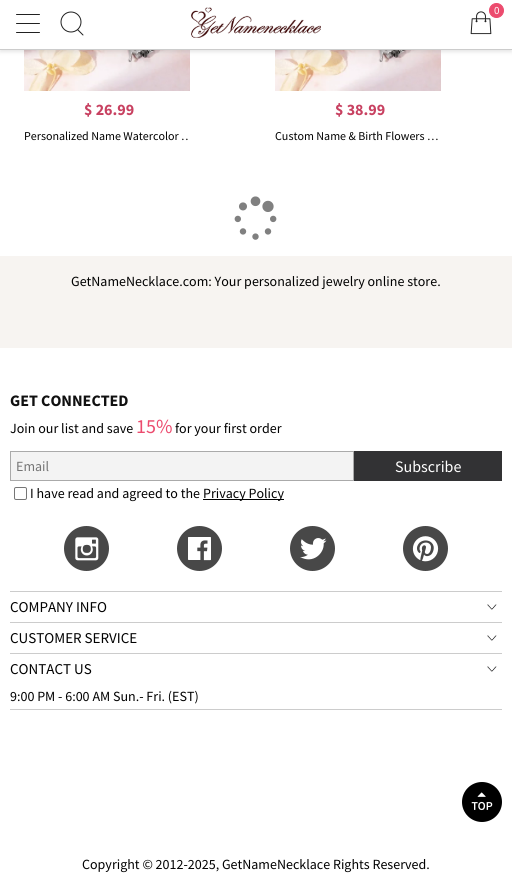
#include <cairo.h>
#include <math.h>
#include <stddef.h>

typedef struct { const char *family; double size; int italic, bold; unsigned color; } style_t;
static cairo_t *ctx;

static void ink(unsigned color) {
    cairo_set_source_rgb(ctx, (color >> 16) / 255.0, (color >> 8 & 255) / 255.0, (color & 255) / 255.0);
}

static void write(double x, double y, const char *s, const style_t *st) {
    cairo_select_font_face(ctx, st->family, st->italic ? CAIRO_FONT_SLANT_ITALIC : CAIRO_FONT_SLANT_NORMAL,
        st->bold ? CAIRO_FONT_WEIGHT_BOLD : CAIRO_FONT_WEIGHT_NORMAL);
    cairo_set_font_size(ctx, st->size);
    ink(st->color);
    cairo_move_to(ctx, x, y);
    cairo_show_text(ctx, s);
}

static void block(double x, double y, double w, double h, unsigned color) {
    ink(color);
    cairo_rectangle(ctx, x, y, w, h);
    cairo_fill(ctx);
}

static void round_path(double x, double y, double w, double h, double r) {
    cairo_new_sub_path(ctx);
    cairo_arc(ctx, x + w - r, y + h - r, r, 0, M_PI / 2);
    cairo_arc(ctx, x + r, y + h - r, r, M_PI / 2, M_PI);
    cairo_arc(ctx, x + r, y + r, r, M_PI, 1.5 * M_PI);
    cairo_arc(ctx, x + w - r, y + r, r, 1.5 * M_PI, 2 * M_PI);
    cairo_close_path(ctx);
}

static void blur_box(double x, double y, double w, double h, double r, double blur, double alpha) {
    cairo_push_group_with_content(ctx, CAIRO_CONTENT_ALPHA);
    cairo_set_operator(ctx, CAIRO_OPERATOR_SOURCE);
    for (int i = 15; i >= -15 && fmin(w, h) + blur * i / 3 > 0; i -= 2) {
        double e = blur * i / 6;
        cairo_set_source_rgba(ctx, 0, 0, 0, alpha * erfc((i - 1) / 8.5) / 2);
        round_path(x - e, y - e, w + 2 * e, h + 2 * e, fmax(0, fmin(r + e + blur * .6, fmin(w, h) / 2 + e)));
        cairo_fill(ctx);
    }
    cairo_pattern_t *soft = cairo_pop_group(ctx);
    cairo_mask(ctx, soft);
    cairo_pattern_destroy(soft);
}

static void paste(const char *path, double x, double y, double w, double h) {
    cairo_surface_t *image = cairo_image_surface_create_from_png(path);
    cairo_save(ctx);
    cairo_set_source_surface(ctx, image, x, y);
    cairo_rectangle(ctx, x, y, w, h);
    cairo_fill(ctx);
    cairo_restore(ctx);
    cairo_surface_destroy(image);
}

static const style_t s1 = {"Source Sans Pro", 11, 0, 0, 0xffffff};
static const style_t s2 = {"Source Sans Pro", 16, 0, 1, 0xc84161};
static const style_t s3 = {"Source Sans Pro", 12, 0, 0, 0x010101};
static const style_t s4 = {"Source Sans Pro", 14, 0, 0, 0x010101};
static const style_t s5 = {"Source Sans Pro", 16, 0, 1, 0x101010};
static const style_t s6 = {"Source Sans Pro", 20, 0, 0, 0xec4b6e};
static const style_t s7 = {"Source Sans Pro", 14, 0, 0, 0x757575};
static const style_t s8 = {"Source Sans Pro", 16, 0, 0, 0xffffff};
static const style_t s9 = {"Source Sans Pro", 15, 0, 0, 0x010101};

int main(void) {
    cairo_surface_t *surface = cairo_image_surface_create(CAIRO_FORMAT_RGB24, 512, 882);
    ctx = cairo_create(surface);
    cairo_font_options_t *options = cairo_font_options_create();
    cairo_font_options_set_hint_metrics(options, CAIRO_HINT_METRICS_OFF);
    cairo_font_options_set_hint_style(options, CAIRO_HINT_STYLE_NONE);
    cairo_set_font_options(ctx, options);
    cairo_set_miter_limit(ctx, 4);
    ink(0xffffff);
    cairo_paint(ctx);
    paste("pic4.png", 24, 50, 166, 41);
    paste("pic5.png", 275, 50, 166, 41);
    ink(0x000000);
    blur_box(0, 2, 512, 50, 0, 2, 0.1);
    block(0, 0, 512, 49, 0xffffff);
    block(0, 49, 512, 1, 0xcccccc);
    ink(0x212121);
    round_path(16, 14, 24, 1, 0.5);
    cairo_fill(ctx);
    round_path(16, 23, 24, 1, 0.5);
    cairo_fill(ctx);
    round_path(16, 32, 24, 1, 0.5);
    cairo_fill(ctx);
    paste("pic1.png", 60, 11, 24, 25);
    paste("pic2.png", 191, 7, 130, 31);
    paste("pic3.png", 470, 11, 22, 24);
    ink(0xec4b6e);
    cairo_arc(ctx, 496.5, 10.5, 7, 0, 2 * M_PI);
    cairo_fill_preserve(ctx);
    cairo_set_line_width(ctx, 1);
    cairo_stroke(ctx);
    write(494, 14, "0", &s1);
    write(84, 115, "$ 26.99", &s2);
    cairo_save(ctx);
    cairo_rectangle(ctx, 24, 121, 166, 30);
    cairo_clip(ctx);
    write(24, 140, "Personalized Name Watercolor …", &s3);
    cairo_restore(ctx);
    write(335, 115, "$ 38.99", &s2);
    write(275, 140, "Custom Name & Birth Flowers …", &s3);
    paste("pic6.png", 234, 196, 43, 44);
    block(0, 256, 512, 92, 0xf7f4f1);
    write(71, 286, "GetNameNecklace.com: Your personalized jewelry online store.", &s4);
    write(10, 406, "GET CONNECTED", &s5);
    write(10, 433, "Join our list and save", &s4);
    write(136, 433, "15%", &s6);
    write(175, 433, "for your first order", &s4);
    cairo_rectangle(ctx, 10.5, 451.5, 343, 29);
    ink(0xaaaaaa);
    cairo_stroke(ctx);
    block(11, 452, 342, 28, 0xf3f3f3);
    write(16, 471, "Email", &s7);
    block(354, 451, 148, 30, 0x323234);
    write(395, 472, "Subscribe", &s8);
    round_path(14.5, 487.5, 12, 12, 1.5);
    ink(0x767676);
    cairo_stroke(ctx);
    write(30, 498, "I have read and agreed to the", &s4);
    block(203, 499, 81, 1, 0x010101);
    write(203, 498, "Privacy Policy", &s4);
    paste("pic7.png", 64, 526, 45, 45);
    paste("pic8.png", 177, 526, 45, 45);
    paste("pic9.png", 290, 526, 45, 45);
    paste("pic10.png", 403, 526, 45, 45);
    block(10, 591, 492, 1, 0xcccccc);
    block(10, 622, 492, 1, 0xcccccc);
    write(10, 612, "COMPANY INFO", &s9);
    paste("pic11.png", 487, 604, 10, 6);
    block(10, 653, 492, 1, 0xcccccc);
    write(10, 643, "CUSTOMER SERVICE", &s9);
    paste("pic11.png", 487, 635, 10, 6);
    block(10, 709, 492, 1, 0xcccccc);
    write(10, 674, "CONTACT US", &s9);
    paste("pic11.png", 487, 666, 10, 6);
    write(10, 701, "9:00 PM - 6:00 AM Sun.- Fri. (EST)", &s4);
    write(82, 869, "Copyright © 2012-2025, GetNameNecklace Rights Reserved.", &s4);
    paste("pic12.png", 462, 782, 40, 40);
    cairo_surface_write_to_png(surface, "screenshot.png");
    cairo_font_options_destroy(options);
    cairo_destroy(ctx);
    cairo_surface_destroy(surface);
    return 0;
}
